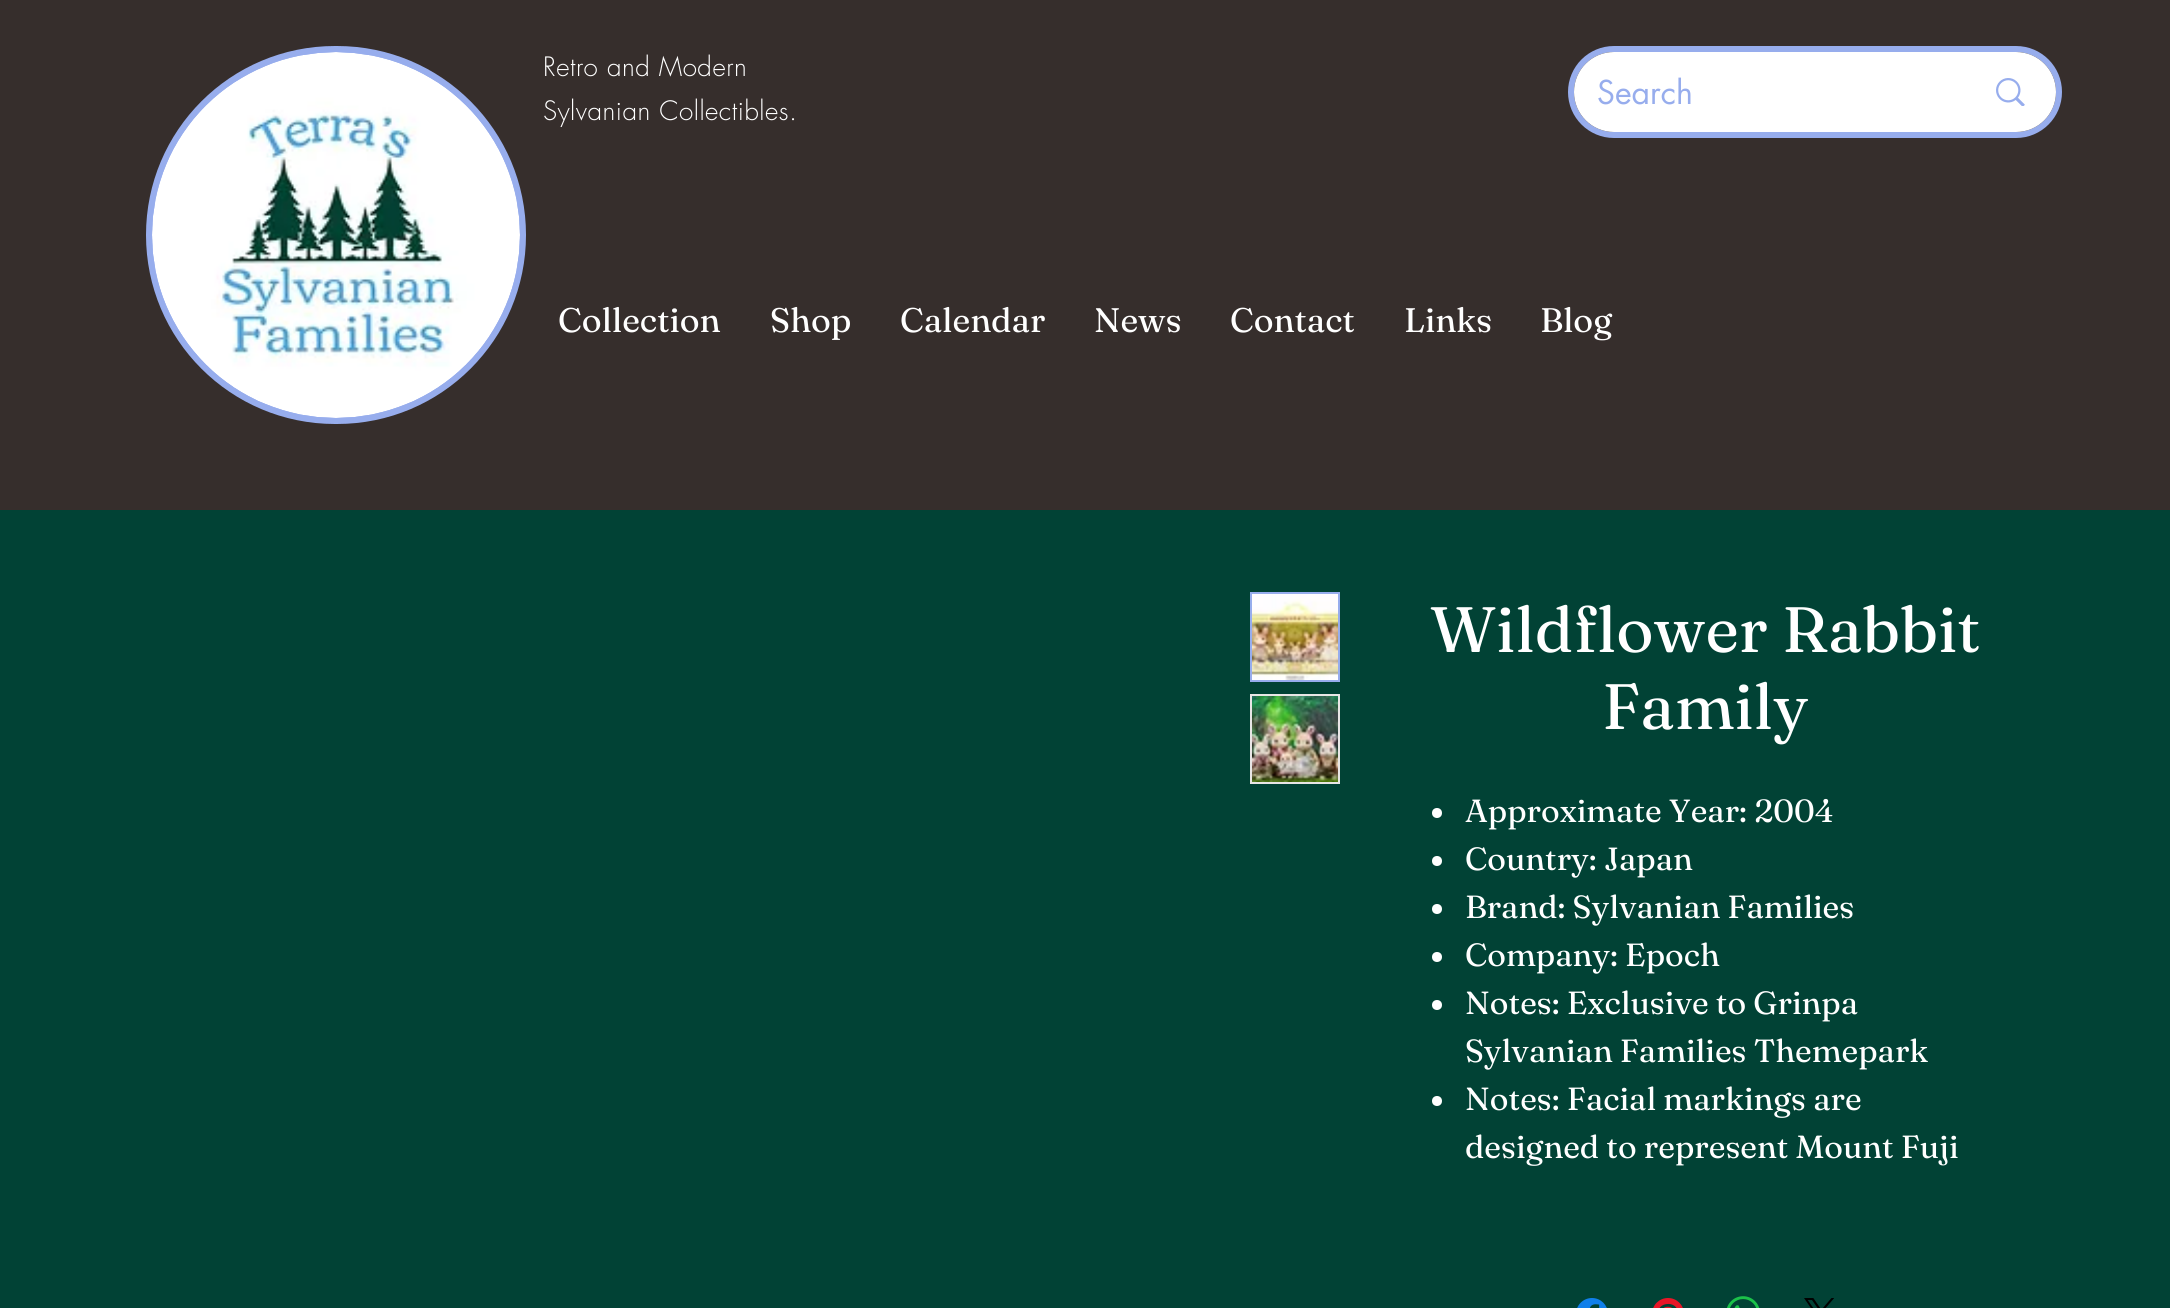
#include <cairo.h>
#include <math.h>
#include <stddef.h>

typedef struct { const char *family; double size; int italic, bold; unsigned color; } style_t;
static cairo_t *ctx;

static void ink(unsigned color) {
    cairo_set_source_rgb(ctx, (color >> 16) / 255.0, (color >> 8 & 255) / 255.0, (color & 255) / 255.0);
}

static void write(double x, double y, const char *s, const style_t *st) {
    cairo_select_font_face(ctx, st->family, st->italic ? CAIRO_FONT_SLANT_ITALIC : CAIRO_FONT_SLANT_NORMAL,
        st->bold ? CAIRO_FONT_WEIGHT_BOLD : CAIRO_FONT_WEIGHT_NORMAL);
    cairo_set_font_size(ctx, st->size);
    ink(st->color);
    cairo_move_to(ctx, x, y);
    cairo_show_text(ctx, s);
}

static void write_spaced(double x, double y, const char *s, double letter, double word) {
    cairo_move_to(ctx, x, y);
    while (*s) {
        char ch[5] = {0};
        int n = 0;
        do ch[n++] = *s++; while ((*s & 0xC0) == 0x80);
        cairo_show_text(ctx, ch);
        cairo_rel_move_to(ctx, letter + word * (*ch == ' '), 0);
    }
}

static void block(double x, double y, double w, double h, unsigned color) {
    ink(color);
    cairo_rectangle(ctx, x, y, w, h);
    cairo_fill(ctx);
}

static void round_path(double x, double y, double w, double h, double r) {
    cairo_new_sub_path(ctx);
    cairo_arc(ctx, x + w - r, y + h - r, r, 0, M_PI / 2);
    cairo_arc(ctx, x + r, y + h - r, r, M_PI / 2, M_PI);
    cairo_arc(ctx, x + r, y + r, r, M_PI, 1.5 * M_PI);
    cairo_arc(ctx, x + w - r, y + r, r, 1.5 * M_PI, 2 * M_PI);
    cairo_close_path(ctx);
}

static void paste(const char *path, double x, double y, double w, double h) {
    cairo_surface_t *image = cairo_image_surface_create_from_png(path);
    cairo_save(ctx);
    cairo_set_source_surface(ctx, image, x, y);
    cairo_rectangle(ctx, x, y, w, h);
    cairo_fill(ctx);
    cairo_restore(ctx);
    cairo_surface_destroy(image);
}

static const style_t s1 = {"futura", 32, 0, 0, 0x97aded};
static const style_t s2 = {"Fraunces", 34, 0, 0, 0xffffff};
static const style_t s3 = {"Fraunces", 64, 0, 0, 0xffffff};
static const style_t s4 = {"Fraunces", 32, 0, 0, 0xffffff};

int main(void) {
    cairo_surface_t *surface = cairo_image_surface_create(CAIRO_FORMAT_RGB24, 2170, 1308);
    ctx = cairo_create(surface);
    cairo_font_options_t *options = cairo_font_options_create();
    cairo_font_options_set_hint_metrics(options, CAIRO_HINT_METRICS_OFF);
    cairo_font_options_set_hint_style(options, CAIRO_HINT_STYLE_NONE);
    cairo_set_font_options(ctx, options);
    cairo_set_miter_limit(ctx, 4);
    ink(0x014235);
    cairo_paint(ctx);
    block(0, 0, 2170, 510, 0x362e2c);
    ink(0x97aded);
    round_path(149, 49, 374, 372, 186);
    cairo_fill_preserve(ctx);
    cairo_set_line_width(ctx, 6);
    cairo_stroke(ctx);
    paste("pic1.png", 152, 52, 368, 366);
    cairo_select_font_face(ctx, "futura Light", CAIRO_FONT_SLANT_NORMAL, CAIRO_FONT_WEIGHT_NORMAL);
    cairo_set_font_size(ctx, 26);
    ink(0xffffff);
    write_spaced(543, 76, "Retro and Modern", 0.5, 0);
    write_spaced(543, 120, "Sylvanian Collectibles.", 0.5, 0);
    round_path(1571, 49, 488, 86, 43);
    ink(0x97aded);
    cairo_stroke(ctx);
    ink(0xffffff);
    round_path(1574, 52, 482, 80, 40);
    cairo_fill(ctx);
    write(1597, 104, "Search", &s1);
    paste("pic2.png", 1996, 78, 29, 28);
    write(558, 332, "Collection", &s2);
    write(770, 332, "Shop", &s2);
    write(900, 332, "Calendar", &s2);
    write(1094, 332, "News", &s2);
    write(1230, 332, "Contact", &s2);
    write(1404, 332, "Links", &s2);
    write(1540, 332, "Blog", &s2);
    cairo_rectangle(ctx, 1251, 593, 88, 88);
    ink(0x97aded);
    cairo_set_line_width(ctx, 2);
    cairo_stroke(ctx);
    paste("pic3.png", 1252, 594, 86, 86);
    block(1250, 694, 90, 90, 0xe8e6e6);
    paste("pic4.png", 1252, 696, 86, 86);
    write(1430, 652, "Wildflower Rabbit", &s3);
    write(1602, 729, "Family", &s3);
    cairo_new_path(ctx);
    cairo_arc(ctx, 1437, 813, 5, 0, 2 * M_PI);
    cairo_fill(ctx);
    write(1465, 822, "Approximate Year: 2004", &s4);
    cairo_new_path(ctx);
    cairo_arc(ctx, 1437, 861, 5, 0, 2 * M_PI);
    cairo_fill(ctx);
    write(1465, 870, "Country: Japan", &s4);
    cairo_new_path(ctx);
    cairo_arc(ctx, 1437, 909, 5, 0, 2 * M_PI);
    cairo_fill(ctx);
    write(1465, 918, "Brand: Sylvanian Families", &s4);
    cairo_new_path(ctx);
    cairo_arc(ctx, 1437, 957, 5, 0, 2 * M_PI);
    cairo_fill(ctx);
    write(1465, 966, "Company: Epoch", &s4);
    cairo_new_path(ctx);
    cairo_arc(ctx, 1437, 1005, 5, 0, 2 * M_PI);
    cairo_fill(ctx);
    write(1465, 1014, "Notes: Exclusive to Grinpa", &s4);
    write(1465, 1062, "Sylvanian Families Themepark", &s4);
    cairo_new_path(ctx);
    cairo_arc(ctx, 1437, 1101, 5, 0, 2 * M_PI);
    cairo_fill(ctx);
    write(1465, 1110, "Notes: Facial markings are", &s4);
    write(1465, 1158, "designed to represent Mount Fuji", &s4);
    paste("pic5.png", 1577, 1298, 30, 10);
    paste("pic6.png", 1653, 1298, 30, 10);
    paste("pic7.png", 1727, 1296, 33, 12);
    paste("pic8.png", 1804, 1298, 30, 10);
    cairo_surface_write_to_png(surface, "screenshot.png");
    cairo_font_options_destroy(options);
    cairo_destroy(ctx);
    cairo_surface_destroy(surface);
    return 0;
}
